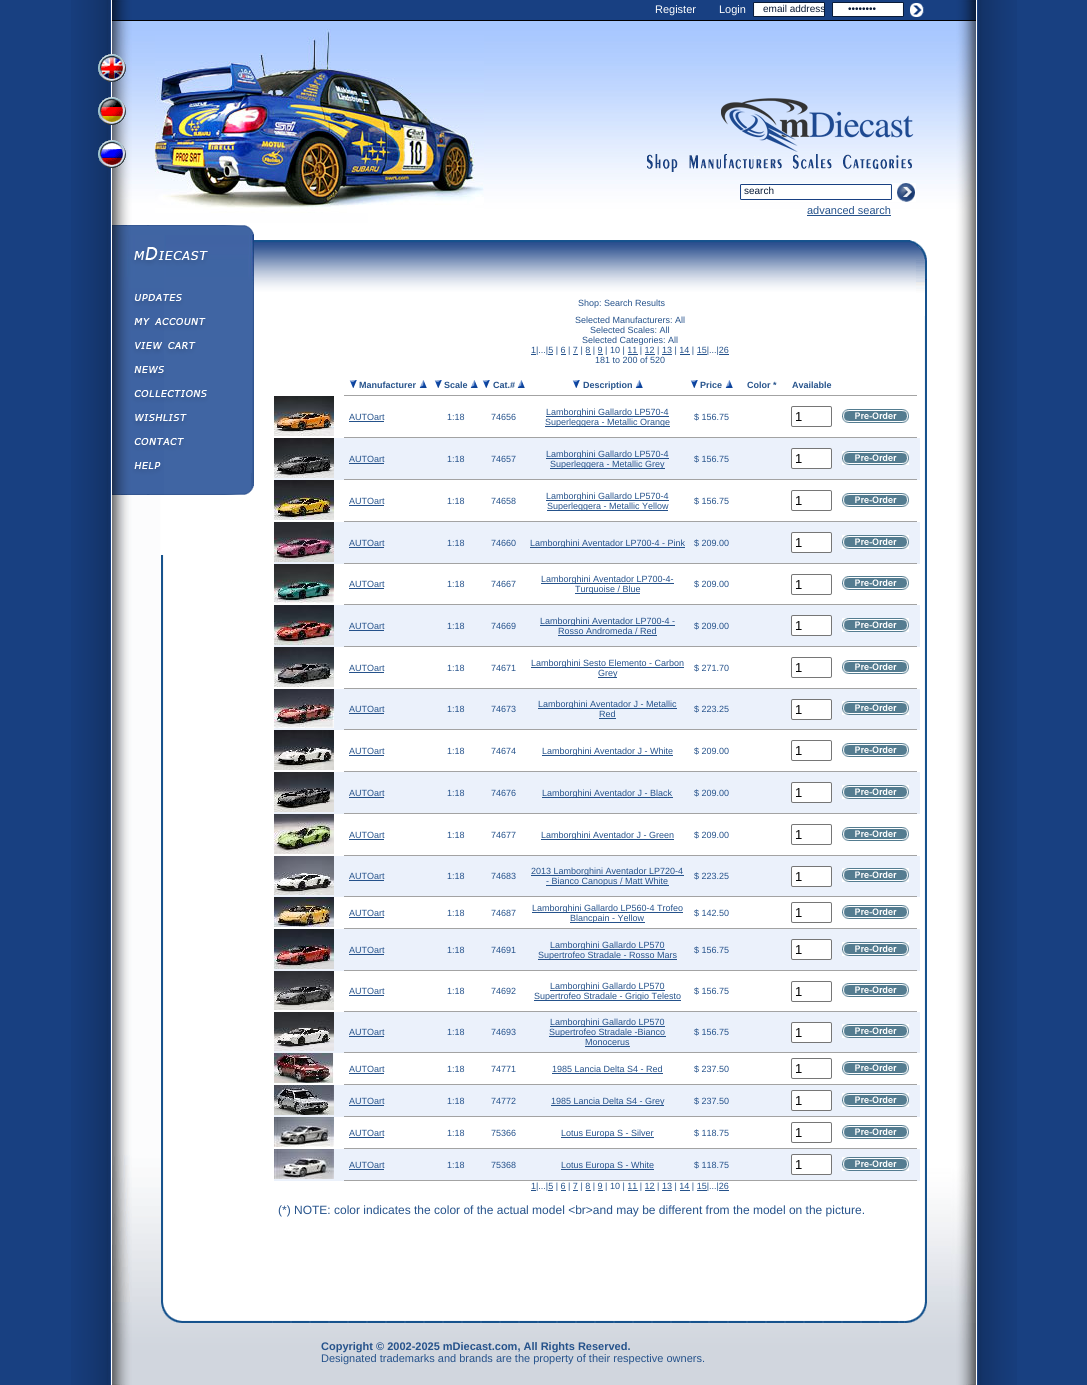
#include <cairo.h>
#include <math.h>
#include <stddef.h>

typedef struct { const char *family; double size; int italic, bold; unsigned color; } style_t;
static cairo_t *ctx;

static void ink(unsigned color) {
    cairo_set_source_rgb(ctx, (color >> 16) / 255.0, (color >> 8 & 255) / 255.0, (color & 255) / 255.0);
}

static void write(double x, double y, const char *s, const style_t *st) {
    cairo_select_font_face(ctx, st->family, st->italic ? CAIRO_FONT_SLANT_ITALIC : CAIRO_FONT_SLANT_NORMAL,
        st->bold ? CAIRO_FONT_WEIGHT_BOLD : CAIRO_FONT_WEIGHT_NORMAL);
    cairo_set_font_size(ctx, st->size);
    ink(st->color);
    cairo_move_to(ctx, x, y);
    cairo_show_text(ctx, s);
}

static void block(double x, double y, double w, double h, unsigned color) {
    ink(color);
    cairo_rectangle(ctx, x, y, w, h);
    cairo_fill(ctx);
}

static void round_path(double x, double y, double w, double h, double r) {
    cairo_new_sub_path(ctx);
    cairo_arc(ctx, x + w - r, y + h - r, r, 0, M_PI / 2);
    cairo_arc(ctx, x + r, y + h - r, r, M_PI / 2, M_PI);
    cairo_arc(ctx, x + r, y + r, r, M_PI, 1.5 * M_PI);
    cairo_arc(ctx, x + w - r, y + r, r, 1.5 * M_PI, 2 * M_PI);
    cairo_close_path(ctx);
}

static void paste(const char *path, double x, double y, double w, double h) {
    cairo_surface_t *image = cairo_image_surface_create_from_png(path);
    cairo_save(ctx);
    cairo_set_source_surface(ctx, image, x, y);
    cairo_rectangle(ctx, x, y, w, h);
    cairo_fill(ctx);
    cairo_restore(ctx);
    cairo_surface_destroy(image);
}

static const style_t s1 = {"Liberation Sans", 11, 0, 0, 0xffffff};
static const style_t s2 = {"Liberation Sans", 10, 0, 0, 0x0a1b37};
static const style_t s3 = {"Liberation Sans", 11, 0, 0, 0x25528b};
static const style_t s4 = {"Liberation Sans", 9, 0, 0, 0x25528b};
static const style_t s5 = {"Liberation Sans", 9, 0, 1, 0x25528b};
static const style_t s6 = {"Liberation Sans", 13, 0, 0, 0x000000};
static const style_t s7 = {"Liberation Sans", 12, 0, 0, 0x25528b};
static const style_t s8 = {"Liberation Sans", 11, 0, 1, 0x25528b};

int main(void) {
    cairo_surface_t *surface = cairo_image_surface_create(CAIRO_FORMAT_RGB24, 1087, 1385);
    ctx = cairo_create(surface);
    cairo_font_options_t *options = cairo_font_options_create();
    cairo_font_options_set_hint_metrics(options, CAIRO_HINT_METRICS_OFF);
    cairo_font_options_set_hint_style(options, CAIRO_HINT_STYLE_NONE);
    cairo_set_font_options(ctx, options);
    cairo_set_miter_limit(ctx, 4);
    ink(0x184081);
    cairo_paint(ctx);
    paste("pic1.png", 71, 0, 946, 1385);
    paste("pic2.png", 98, 0, 878, 447);
    paste("pic3.png", 753, 2, 171, 15);
    write(655, 13, "Register", &s1);
    write(719, 13, "Login", &s1);
    write(763, 12, "email address", &s2);
    write(848, 12, "••••••••", &s2);
    paste("pic4.png", 155, 29, 329, 184);
    paste("pic5.png", 721, 98, 193, 54);
    paste("pic6.png", 647, 154, 31, 18);
    paste("pic7.png", 689, 154, 93, 15);
    paste("pic8.png", 793, 154, 39, 15);
    paste("pic9.png", 843, 154, 69, 15);
    paste("pic10.png", 740, 183, 176, 19);
    write(744, 194, "search", &s2);
    write(807, 214, "advanced search", &s3);
    block(807, 215, 84, 1, 0x25528b);
    paste("pic11.png", 112, 225, 142, 330);
    write(578, 306, "Shop: Search Results", &s4);
    write(575, 323, "Selected Manufacturers: All", &s4);
    write(590, 333, "Selected Scales: All", &s4);
    write(582, 343, "Selected Categories: All", &s4);
    block(531, 354, 5, 1, 0x25528b);
    write(531, 353, "1|...|5 | 6 | 7 | 8 | 9 | 10 | 11 | 12 | 13 | 14 | 15|...|26", &s4);
    block(548, 354, 5, 1, 0x25528b);
    block(561, 354, 5, 1, 0x25528b);
    block(573, 354, 5, 1, 0x25528b);
    block(586, 354, 5, 1, 0x25528b);
    block(598, 354, 5, 1, 0x25528b);
    block(628, 354, 10, 1, 0x25528b);
    block(645, 354, 10, 1, 0x25528b);
    block(662, 354, 10, 1, 0x25528b);
    block(680, 354, 10, 1, 0x25528b);
    block(697, 354, 10, 1, 0x25528b);
    block(719, 354, 10, 1, 0x25528b);
    write(595, 363, "181 to 200 of 520", &s4);
    block(344, 395, 573, 1, 0xa3a3a3);
    paste("pic12.png", 349, 380, 8, 8);
    write(359, 388, "Manufacturer", &s5);
    paste("pic13.png", 419, 380, 8, 8);
    paste("pic12.png", 434, 380, 8, 8);
    write(444, 388, "Scale", &s5);
    paste("pic13.png", 470, 380, 8, 8);
    paste("pic12.png", 482, 380, 8, 8);
    write(493, 388, "Cat.#", &s5);
    paste("pic13.png", 517, 380, 8, 8);
    paste("pic12.png", 572, 380, 8, 8);
    write(583, 388, "Description", &s5);
    paste("pic13.png", 635, 380, 8, 8);
    paste("pic12.png", 690, 380, 8, 8);
    write(700, 388, "Price", &s5);
    paste("pic13.png", 725, 380, 8, 8);
    write(747, 388, "Color *", &s5);
    write(792, 388, "Available", &s5);
    paste("pic14.png", 274, 396, 60, 40);
    block(344, 437, 573, 1, 0xa3a3a3);
    write(349, 420, "AUTOart", &s4);
    block(349, 421, 35, 1, 0x25528b);
    write(447, 420, "1:18", &s4);
    write(491, 420, "74656", &s4);
    block(546, 416, 123, 1, 0x25528b);
    write(546, 415, "Lamborghini Gallardo LP570-4", &s4);
    block(545, 426, 125, 1, 0x25528b);
    write(545, 425, "Superleggera - Metallic Orange", &s4);
    write(694, 420, "$ 156.75", &s4);
    round_path(791.5, 406.5, 40, 20, 1.5);
    ink(0x767676);
    cairo_set_line_width(ctx, 1);
    cairo_stroke(ctx);
    write(795, 421, "1", &s6);
    paste("pic15.png", 842, 409, 67, 14);
    block(274, 438, 646, 42, 0xebf1fb);
    paste("pic16.png", 274, 438, 60, 40);
    block(344, 479, 573, 1, 0xa3a3a3);
    write(349, 462, "AUTOart", &s4);
    block(349, 463, 35, 1, 0x25528b);
    write(447, 462, "1:18", &s4);
    write(491, 462, "74657", &s4);
    block(546, 458, 123, 1, 0x25528b);
    write(546, 457, "Lamborghini Gallardo LP570-4", &s4);
    block(550, 468, 115, 1, 0x25528b);
    write(550, 467, "Superleggera - Metallic Grey", &s4);
    write(694, 462, "$ 156.75", &s4);
    ink(0xffffff);
    round_path(791.5, 448.5, 40, 20, 1.5);
    cairo_fill_preserve(ctx);
    ink(0x767676);
    cairo_stroke(ctx);
    write(795, 463, "1", &s6);
    paste("pic15.png", 842, 451, 67, 14);
    paste("pic17.png", 274, 480, 60, 40);
    block(344, 521, 573, 1, 0xa3a3a3);
    write(349, 504, "AUTOart", &s4);
    block(349, 505, 35, 1, 0x25528b);
    write(447, 504, "1:18", &s4);
    write(491, 504, "74658", &s4);
    block(546, 500, 123, 1, 0x25528b);
    write(546, 499, "Lamborghini Gallardo LP570-4", &s4);
    block(547, 510, 121, 1, 0x25528b);
    write(547, 509, "Superleggera - Metallic Yellow", &s4);
    write(694, 504, "$ 156.75", &s4);
    round_path(791.5, 490.5, 40, 20, 1.5);
    ink(0x767676);
    cairo_stroke(ctx);
    write(795, 505, "1", &s6);
    paste("pic15.png", 842, 493, 67, 14);
    block(274, 522, 646, 42, 0xebf1fb);
    paste("pic18.png", 274, 522, 60, 40);
    block(344, 563, 573, 1, 0xa3a3a3);
    write(349, 546, "AUTOart", &s4);
    block(349, 547, 35, 1, 0x25528b);
    write(447, 546, "1:18", &s4);
    write(491, 546, "74660", &s4);
    block(530, 547, 155, 1, 0x25528b);
    write(530, 546, "Lamborghini Aventador LP700-4 - Pink", &s4);
    write(694, 546, "$ 209.00", &s4);
    ink(0xffffff);
    round_path(791.5, 532.5, 40, 20, 1.5);
    cairo_fill_preserve(ctx);
    ink(0x767676);
    cairo_stroke(ctx);
    write(795, 547, "1", &s6);
    paste("pic15.png", 842, 535, 67, 14);
    paste("pic19.png", 274, 564, 60, 39);
    block(344, 604, 573, 1, 0xa3a3a3);
    write(349, 587, "AUTOart", &s4);
    block(349, 588, 35, 1, 0x25528b);
    write(447, 587, "1:18", &s4);
    write(491, 587, "74667", &s4);
    block(541, 583, 133, 1, 0x25528b);
    write(541, 582, "Lamborghini Aventador LP700-4-", &s4);
    block(575, 593, 65, 1, 0x25528b);
    write(575, 592, "Turquoise / Blue", &s4);
    write(694, 587, "$ 209.00", &s4);
    round_path(791.5, 574.5, 40, 20, 1.5);
    ink(0x767676);
    cairo_stroke(ctx);
    write(795, 589, "1", &s6);
    paste("pic15.png", 842, 576, 67, 14);
    block(274, 605, 646, 42, 0xebf1fb);
    paste("pic20.png", 274, 605, 60, 40);
    block(344, 646, 573, 1, 0xa3a3a3);
    write(349, 629, "AUTOart", &s4);
    block(349, 630, 35, 1, 0x25528b);
    write(447, 629, "1:18", &s4);
    write(491, 629, "74669", &s4);
    block(540, 625, 135, 1, 0x25528b);
    write(540, 624, "Lamborghini Aventador LP700-4 -", &s4);
    write(558, 634, "Rosso Andromeda / Red", &s4);
    block(558, 635, 99, 1, 0x25528b);
    write(694, 629, "$ 209.00", &s4);
    ink(0xffffff);
    round_path(791.5, 615.5, 40, 20, 1.5);
    cairo_fill_preserve(ctx);
    ink(0x767676);
    cairo_stroke(ctx);
    write(795, 630, "1", &s6);
    paste("pic15.png", 842, 618, 67, 14);
    paste("pic21.png", 274, 647, 60, 40);
    block(344, 688, 573, 1, 0xa3a3a3);
    write(349, 671, "AUTOart", &s4);
    block(349, 672, 35, 1, 0x25528b);
    write(447, 671, "1:18", &s4);
    write(491, 671, "74671", &s4);
    block(531, 667, 153, 1, 0x25528b);
    write(531, 666, "Lamborghini Sesto Elemento - Carbon", &s4);
    block(598, 677, 19, 1, 0x25528b);
    write(598, 676, "Grey", &s4);
    write(694, 671, "$ 271.70", &s4);
    round_path(791.5, 657.5, 40, 20, 1.5);
    ink(0x767676);
    cairo_stroke(ctx);
    write(795, 672, "1", &s6);
    paste("pic15.png", 842, 660, 67, 14);
    block(274, 689, 646, 41, 0xebf1fb);
    paste("pic22.png", 274, 689, 60, 39);
    block(344, 729, 573, 1, 0xa3a3a3);
    write(349, 712, "AUTOart", &s4);
    block(349, 713, 35, 1, 0x25528b);
    write(447, 712, "1:18", &s4);
    write(491, 712, "74673", &s4);
    block(538, 708, 139, 1, 0x25528b);
    write(538, 707, "Lamborghini Aventador J - Metallic", &s4);
    write(599, 717, "Red", &s4);
    block(599, 718, 17, 1, 0x25528b);
    write(694, 712, "$ 223.25", &s4);
    ink(0xffffff);
    round_path(791.5, 699.5, 40, 20, 1.5);
    cairo_fill_preserve(ctx);
    ink(0x767676);
    cairo_stroke(ctx);
    write(795, 714, "1", &s6);
    paste("pic15.png", 842, 701, 67, 14);
    paste("pic23.png", 274, 730, 60, 40);
    block(344, 771, 573, 1, 0xa3a3a3);
    write(349, 754, "AUTOart", &s4);
    block(349, 755, 35, 1, 0x25528b);
    write(447, 754, "1:18", &s4);
    write(491, 754, "74674", &s4);
    block(542, 755, 131, 1, 0x25528b);
    write(542, 754, "Lamborghini Aventador J - White", &s4);
    write(694, 754, "$ 209.00", &s4);
    round_path(791.5, 740.5, 40, 20, 1.5);
    ink(0x767676);
    cairo_stroke(ctx);
    write(795, 755, "1", &s6);
    paste("pic15.png", 842, 743, 67, 14);
    block(274, 772, 646, 42, 0xebf1fb);
    paste("pic24.png", 274, 772, 60, 40);
    block(344, 813, 573, 1, 0xa3a3a3);
    write(349, 796, "AUTOart", &s4);
    block(349, 797, 35, 1, 0x25528b);
    write(447, 796, "1:18", &s4);
    write(491, 796, "74676", &s4);
    block(542, 797, 131, 1, 0x25528b);
    write(542, 796, "Lamborghini Aventador J - Black", &s4);
    write(694, 796, "$ 209.00", &s4);
    ink(0xffffff);
    round_path(791.5, 782.5, 40, 20, 1.5);
    cairo_fill_preserve(ctx);
    ink(0x767676);
    cairo_stroke(ctx);
    write(795, 797, "1", &s6);
    paste("pic15.png", 842, 785, 67, 14);
    paste("pic25.png", 274, 814, 60, 40);
    block(344, 855, 573, 1, 0xa3a3a3);
    write(349, 838, "AUTOart", &s4);
    block(349, 839, 35, 1, 0x25528b);
    write(447, 838, "1:18", &s4);
    write(491, 838, "74677", &s4);
    block(541, 839, 133, 1, 0x25528b);
    write(541, 838, "Lamborghini Aventador J - Green", &s4);
    write(694, 838, "$ 209.00", &s4);
    round_path(791.5, 824.5, 40, 20, 1.5);
    ink(0x767676);
    cairo_stroke(ctx);
    write(795, 839, "1", &s6);
    paste("pic15.png", 842, 827, 67, 14);
    block(274, 856, 646, 41, 0xebf1fb);
    paste("pic26.png", 274, 856, 60, 39);
    block(344, 896, 573, 1, 0xa3a3a3);
    write(349, 879, "AUTOart", &s4);
    block(349, 880, 35, 1, 0x25528b);
    write(447, 879, "1:18", &s4);
    write(491, 879, "74683", &s4);
    block(531, 875, 153, 1, 0x25528b);
    write(531, 874, "2013 Lamborghini Aventador LP720-4", &s4);
    block(546, 885, 123, 1, 0x25528b);
    write(546, 884, "- Bianco Canopus / Matt White", &s4);
    write(694, 879, "$ 223.25", &s4);
    ink(0xffffff);
    round_path(791.5, 866.5, 40, 20, 1.5);
    cairo_fill_preserve(ctx);
    ink(0x767676);
    cairo_stroke(ctx);
    write(795, 881, "1", &s6);
    paste("pic15.png", 842, 868, 67, 14);
    paste("pic27.png", 274, 897, 60, 30);
    block(344, 928, 573, 1, 0xa3a3a3);
    write(349, 916, "AUTOart", &s4);
    block(349, 917, 35, 1, 0x25528b);
    write(447, 916, "1:18", &s4);
    write(491, 916, "74687", &s4);
    block(532, 912, 151, 1, 0x25528b);
    write(532, 911, "Lamborghini Gallardo LP560-4 Trofeo", &s4);
    block(570, 922, 75, 1, 0x25528b);
    write(570, 921, "Blancpain - Yellow", &s4);
    write(694, 916, "$ 142.50", &s4);
    round_path(791.5, 902.5, 40, 20, 1.5);
    ink(0x767676);
    cairo_stroke(ctx);
    write(795, 917, "1", &s6);
    paste("pic15.png", 842, 905, 67, 14);
    block(274, 929, 646, 42, 0xebf1fb);
    paste("pic28.png", 274, 929, 60, 40);
    block(344, 970, 573, 1, 0xa3a3a3);
    write(349, 953, "AUTOart", &s4);
    block(349, 954, 35, 1, 0x25528b);
    write(447, 953, "1:18", &s4);
    write(491, 953, "74691", &s4);
    block(550, 949, 115, 1, 0x25528b);
    write(550, 948, "Lamborghini Gallardo LP570", &s4);
    block(538, 959, 139, 1, 0x25528b);
    write(538, 958, "Supertrofeo Stradale - Rosso Mars", &s4);
    write(694, 953, "$ 156.75", &s4);
    ink(0xffffff);
    round_path(791.5, 939.5, 40, 20, 1.5);
    cairo_fill_preserve(ctx);
    ink(0x767676);
    cairo_stroke(ctx);
    write(795, 954, "1", &s6);
    paste("pic15.png", 842, 942, 67, 14);
    paste("pic29.png", 274, 971, 60, 39);
    block(344, 1011, 573, 1, 0xa3a3a3);
    write(349, 994, "AUTOart", &s4);
    block(349, 995, 35, 1, 0x25528b);
    write(447, 994, "1:18", &s4);
    write(491, 994, "74692", &s4);
    block(550, 990, 115, 1, 0x25528b);
    write(550, 989, "Lamborghini Gallardo LP570", &s4);
    block(534, 1000, 147, 1, 0x25528b);
    write(534, 999, "Supertrofeo Stradale - Grigio Telesto", &s4);
    write(694, 994, "$ 156.75", &s4);
    round_path(791.5, 981.5, 40, 20, 1.5);
    ink(0x767676);
    cairo_stroke(ctx);
    write(795, 996, "1", &s6);
    paste("pic15.png", 842, 983, 67, 14);
    block(274, 1012, 646, 41, 0xebf1fb);
    paste("pic30.png", 274, 1012, 60, 39);
    block(344, 1052, 573, 1, 0xa3a3a3);
    write(349, 1035, "AUTOart", &s4);
    block(349, 1036, 35, 1, 0x25528b);
    write(447, 1035, "1:18", &s4);
    write(491, 1035, "74693", &s4);
    block(550, 1026, 115, 1, 0x25528b);
    write(550, 1025, "Lamborghini Gallardo LP570", &s4);
    block(549, 1036, 117, 1, 0x25528b);
    write(549, 1035, "Supertrofeo Stradale -Bianco", &s4);
    write(585, 1045, "Monocerus", &s4);
    block(585, 1046, 45, 1, 0x25528b);
    write(694, 1035, "$ 156.75", &s4);
    ink(0xffffff);
    round_path(791.5, 1022.5, 40, 20, 1.5);
    cairo_fill_preserve(ctx);
    ink(0x767676);
    cairo_stroke(ctx);
    write(795, 1037, "1", &s6);
    paste("pic15.png", 842, 1024, 67, 14);
    paste("pic31.png", 274, 1053, 60, 30);
    block(344, 1084, 573, 1, 0xa3a3a3);
    write(349, 1072, "AUTOart", &s4);
    block(349, 1073, 35, 1, 0x25528b);
    write(447, 1072, "1:18", &s4);
    write(491, 1072, "74771", &s4);
    write(552, 1072, "1985 Lancia Delta S4 - Red", &s4);
    block(552, 1073, 111, 1, 0x25528b);
    write(694, 1072, "$ 237.50", &s4);
    round_path(791.5, 1058.5, 40, 20, 1.5);
    ink(0x767676);
    cairo_stroke(ctx);
    write(795, 1073, "1", &s6);
    paste("pic15.png", 842, 1061, 67, 14);
    block(274, 1085, 646, 32, 0xebf1fb);
    paste("pic32.png", 274, 1085, 60, 30);
    block(344, 1116, 573, 1, 0xa3a3a3);
    write(349, 1104, "AUTOart", &s4);
    block(349, 1105, 35, 1, 0x25528b);
    write(447, 1104, "1:18", &s4);
    write(491, 1104, "74772", &s4);
    block(551, 1105, 113, 1, 0x25528b);
    write(551, 1104, "1985 Lancia Delta S4 - Grey", &s4);
    write(694, 1104, "$ 237.50", &s4);
    ink(0xffffff);
    round_path(791.5, 1090.5, 40, 20, 1.5);
    cairo_fill_preserve(ctx);
    ink(0x767676);
    cairo_stroke(ctx);
    write(795, 1105, "1", &s6);
    paste("pic15.png", 842, 1093, 67, 14);
    paste("pic33.png", 274, 1117, 60, 30);
    block(344, 1148, 573, 1, 0xa3a3a3);
    write(349, 1136, "AUTOart", &s4);
    block(349, 1137, 35, 1, 0x25528b);
    write(447, 1136, "1:18", &s4);
    write(491, 1136, "75366", &s4);
    block(561, 1137, 93, 1, 0x25528b);
    write(561, 1136, "Lotus Europa S - Silver", &s4);
    write(694, 1136, "$ 118.75", &s4);
    round_path(791.5, 1122.5, 40, 20, 1.5);
    ink(0x767676);
    cairo_stroke(ctx);
    write(795, 1137, "1", &s6);
    paste("pic15.png", 842, 1125, 67, 14);
    paste("pic35.png", 112, 1155, 864, 230);
    block(274, 1149, 646, 32, 0xebf1fb);
    paste("pic34.png", 274, 1149, 60, 30);
    block(344, 1180, 573, 1, 0xa3a3a3);
    write(349, 1168, "AUTOart", &s4);
    block(349, 1169, 35, 1, 0x25528b);
    write(447, 1168, "1:18", &s4);
    write(491, 1168, "75368", &s4);
    block(561, 1169, 93, 1, 0x25528b);
    write(561, 1168, "Lotus Europa S - White", &s4);
    write(694, 1168, "$ 118.75", &s4);
    ink(0xffffff);
    round_path(791.5, 1154.5, 40, 20, 1.5);
    cairo_fill_preserve(ctx);
    ink(0x767676);
    cairo_stroke(ctx);
    write(795, 1169, "1", &s6);
    paste("pic15.png", 842, 1157, 67, 14);
    block(531, 1190, 5, 1, 0x25528b);
    write(531, 1189, "1|...|5 | 6 | 7 | 8 | 9 | 10 | 11 | 12 | 13 | 14 | 15|...|26", &s4);
    block(548, 1190, 5, 1, 0x25528b);
    block(561, 1190, 5, 1, 0x25528b);
    block(573, 1190, 5, 1, 0x25528b);
    block(586, 1190, 5, 1, 0x25528b);
    block(598, 1190, 5, 1, 0x25528b);
    block(628, 1190, 10, 1, 0x25528b);
    block(645, 1190, 10, 1, 0x25528b);
    block(662, 1190, 10, 1, 0x25528b);
    block(680, 1190, 10, 1, 0x25528b);
    block(697, 1190, 10, 1, 0x25528b);
    block(719, 1190, 10, 1, 0x25528b);
    write(278, 1214, "(*) NOTE: color indicates the color of the actual model <br>and may be different from the model on the picture.", &s7);
    write(321, 1350, "Copyright © 2002-2025 mDiecast.com, All Rights Reserved.", &s8);
    write(321, 1362, "Designated trademarks and brands are the property of their respective owners.", &s3);
    cairo_surface_write_to_png(surface, "screenshot.png");
    cairo_font_options_destroy(options);
    cairo_destroy(ctx);
    cairo_surface_destroy(surface);
    return 0;
}
